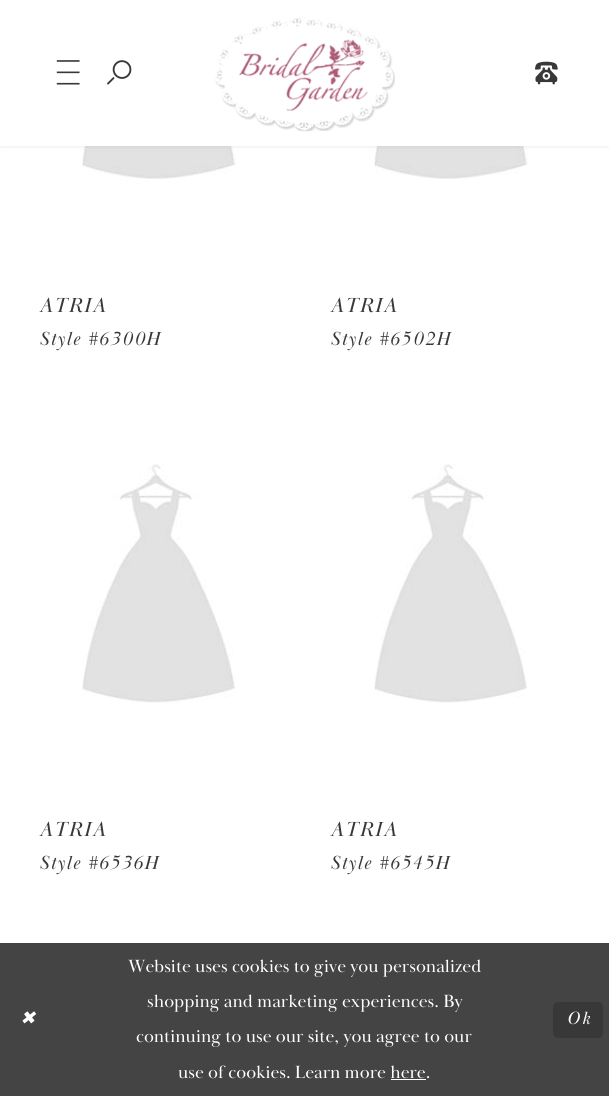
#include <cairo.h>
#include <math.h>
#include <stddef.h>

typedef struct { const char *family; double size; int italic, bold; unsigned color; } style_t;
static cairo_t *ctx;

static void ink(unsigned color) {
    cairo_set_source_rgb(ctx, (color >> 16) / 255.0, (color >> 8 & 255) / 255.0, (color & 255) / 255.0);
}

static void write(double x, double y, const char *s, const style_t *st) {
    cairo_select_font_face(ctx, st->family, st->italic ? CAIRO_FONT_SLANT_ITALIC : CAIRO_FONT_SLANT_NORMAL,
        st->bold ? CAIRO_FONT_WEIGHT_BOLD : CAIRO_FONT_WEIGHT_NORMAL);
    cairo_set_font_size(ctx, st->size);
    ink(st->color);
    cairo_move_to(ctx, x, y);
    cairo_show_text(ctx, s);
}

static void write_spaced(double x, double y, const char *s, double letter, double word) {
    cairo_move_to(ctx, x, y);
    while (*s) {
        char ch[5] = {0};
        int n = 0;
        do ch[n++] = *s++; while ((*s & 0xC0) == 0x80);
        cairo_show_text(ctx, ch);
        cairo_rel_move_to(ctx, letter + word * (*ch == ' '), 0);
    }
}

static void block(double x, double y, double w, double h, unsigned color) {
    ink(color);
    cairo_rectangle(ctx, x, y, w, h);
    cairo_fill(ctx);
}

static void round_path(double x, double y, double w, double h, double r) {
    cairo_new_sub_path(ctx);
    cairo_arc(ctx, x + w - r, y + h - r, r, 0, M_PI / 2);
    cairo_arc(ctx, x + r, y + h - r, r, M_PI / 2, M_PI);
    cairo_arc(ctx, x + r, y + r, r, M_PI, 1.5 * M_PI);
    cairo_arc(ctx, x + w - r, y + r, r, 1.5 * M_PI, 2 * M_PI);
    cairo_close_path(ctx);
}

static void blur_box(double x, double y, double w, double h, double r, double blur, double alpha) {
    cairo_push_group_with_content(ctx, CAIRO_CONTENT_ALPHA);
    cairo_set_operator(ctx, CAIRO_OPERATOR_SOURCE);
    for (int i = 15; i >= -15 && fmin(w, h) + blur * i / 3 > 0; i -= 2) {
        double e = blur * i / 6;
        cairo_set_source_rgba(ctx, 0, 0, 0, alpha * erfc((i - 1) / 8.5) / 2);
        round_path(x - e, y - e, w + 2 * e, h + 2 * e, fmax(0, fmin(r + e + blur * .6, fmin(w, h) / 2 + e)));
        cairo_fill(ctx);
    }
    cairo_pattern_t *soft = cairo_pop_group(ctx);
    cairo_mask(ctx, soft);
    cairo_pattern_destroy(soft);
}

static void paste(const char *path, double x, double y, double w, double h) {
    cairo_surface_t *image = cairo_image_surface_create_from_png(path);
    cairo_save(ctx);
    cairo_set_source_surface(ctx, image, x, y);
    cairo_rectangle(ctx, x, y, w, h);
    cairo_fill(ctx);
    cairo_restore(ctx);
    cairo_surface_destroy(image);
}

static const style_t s1 = {"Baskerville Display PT", 18.25, 0, 0, 0xffffff};

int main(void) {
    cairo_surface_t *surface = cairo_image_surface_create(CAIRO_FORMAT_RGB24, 609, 1096);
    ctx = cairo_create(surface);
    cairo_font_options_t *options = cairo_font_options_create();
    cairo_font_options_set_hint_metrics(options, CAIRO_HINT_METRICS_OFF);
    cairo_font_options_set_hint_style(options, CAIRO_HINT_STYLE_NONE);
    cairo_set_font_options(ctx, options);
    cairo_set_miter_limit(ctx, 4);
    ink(0xffffff);
    cairo_paint(ctx);
    paste("pic5.png", 82, 146, 154, 33);
    paste("pic5.png", 374, 146, 154, 33);
    ink(0x4c4c4b);
    blur_box(0, 1, 609, 146, 0, 2, 0.1);
    block(0, 0, 609, 146, 0xffffff);
    paste("pic1.png", 56, 60, 24, 25);
    paste("pic2.png", 107, 60, 25, 25);
    paste("pic3.png", 215, 17, 180, 115);
    paste("pic4.png", 535, 61, 23, 24);
    cairo_select_font_face(ctx, "Baskerville Display PT", CAIRO_FONT_SLANT_ITALIC, CAIRO_FONT_WEIGHT_NORMAL);
    cairo_set_font_size(ctx, 21);
    ink(0x393838);
    write_spaced(39, 312, "ATRIA", 1.5, 0);
    cairo_set_font_size(ctx, 19.5);
    write_spaced(39, 345, "Style #6300H", 1.5, 0);
    cairo_set_font_size(ctx, 21);
    write_spaced(330, 312, "ATRIA", 1.5, 0);
    cairo_set_font_size(ctx, 19.5);
    write_spaced(330, 345, "Style #6502H", 1.5, 0);
    paste("pic6.png", 82, 464, 154, 239);
    cairo_set_font_size(ctx, 21);
    write_spaced(39, 836, "ATRIA", 1.5, 0);
    cairo_set_font_size(ctx, 19.5);
    write_spaced(39, 869, "Style #6536H", 1.5, 0);
    paste("pic6.png", 374, 464, 154, 239);
    cairo_set_font_size(ctx, 21);
    write_spaced(330, 836, "ATRIA", 1.5, 0);
    cairo_set_font_size(ctx, 19.5);
    write_spaced(330, 869, "Style #6545H", 1.5, 0);
    block(0, 943, 609, 153, 0x444444);
    cairo_select_font_face(ctx, "DejaVu Sans", CAIRO_FONT_SLANT_ITALIC, CAIRO_FONT_WEIGHT_NORMAL);
    cairo_set_font_size(ctx, 18.25);
    ink(0xffffff);
    write_spaced(20, 1024, "✖", 2, 0);
    write(128, 972, "Website uses cookies to give you personalized", &s1);
    write(147, 1007, "shopping and marketing experiences. By", &s1);
    write(136, 1042, "continuing to use our site, you agree to our", &s1);
    write(178, 1078, "use of cookies. Learn more here.", &s1);
    block(391, 1079, 35, 1, 0xffffff);
    ink(0x393838);
    round_path(553, 1002, 50, 36, 5);
    cairo_fill(ctx);
    cairo_select_font_face(ctx, "Baskerville Display PT", CAIRO_FONT_SLANT_ITALIC, CAIRO_FONT_WEIGHT_NORMAL);
    ink(0xffffff);
    write_spaced(567, 1024, "Ok", 2, 0);
    cairo_surface_write_to_png(surface, "screenshot.png");
    cairo_font_options_destroy(options);
    cairo_destroy(ctx);
    cairo_surface_destroy(surface);
    return 0;
}
